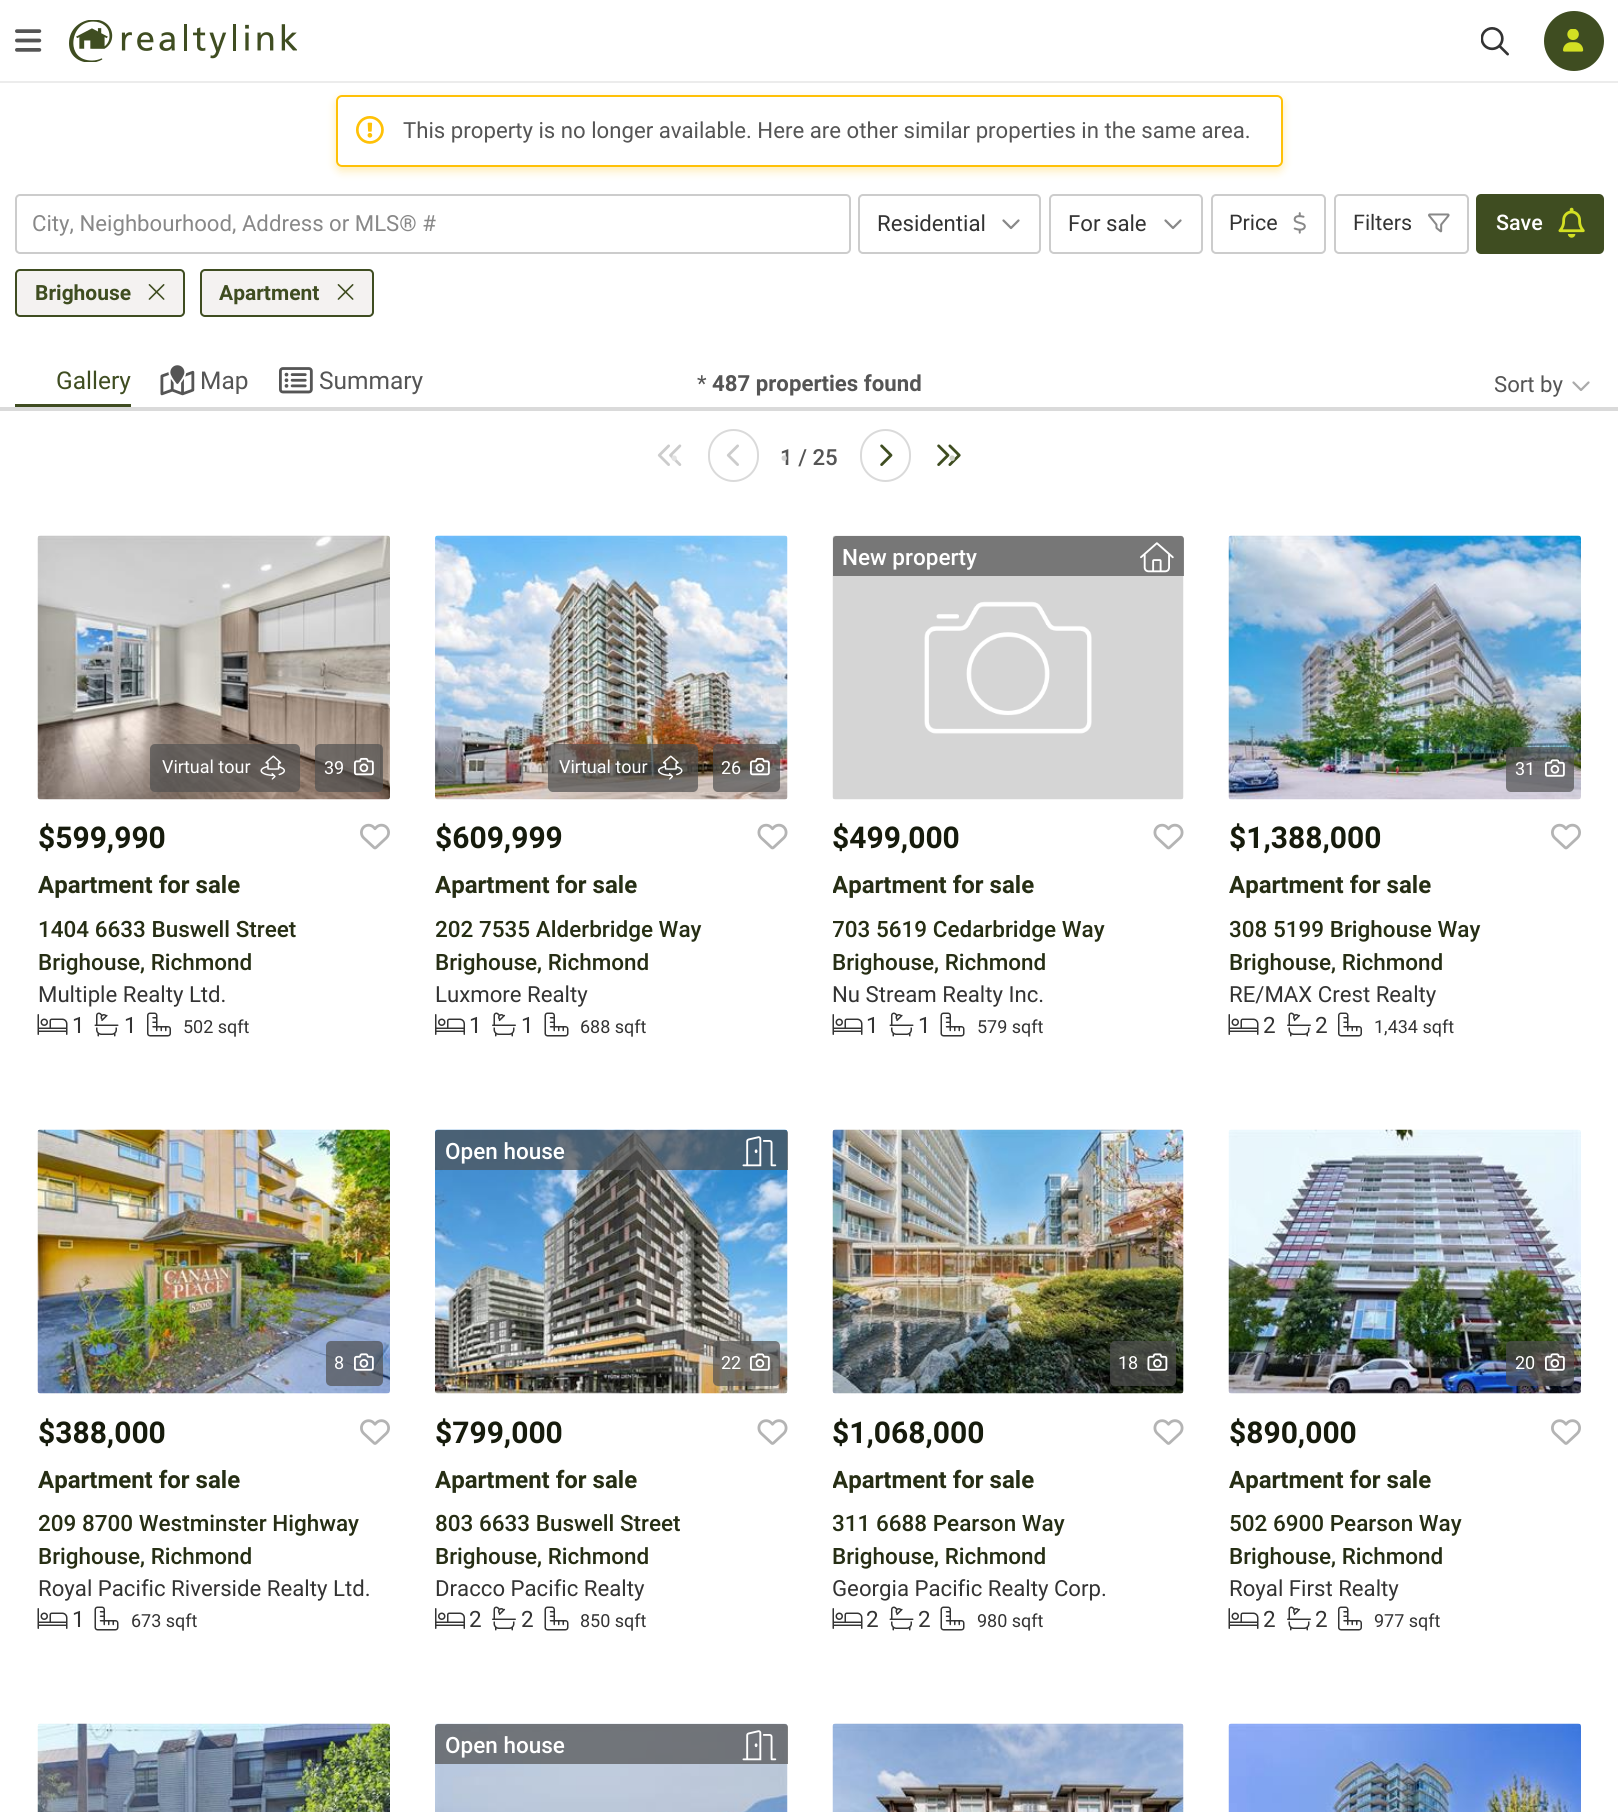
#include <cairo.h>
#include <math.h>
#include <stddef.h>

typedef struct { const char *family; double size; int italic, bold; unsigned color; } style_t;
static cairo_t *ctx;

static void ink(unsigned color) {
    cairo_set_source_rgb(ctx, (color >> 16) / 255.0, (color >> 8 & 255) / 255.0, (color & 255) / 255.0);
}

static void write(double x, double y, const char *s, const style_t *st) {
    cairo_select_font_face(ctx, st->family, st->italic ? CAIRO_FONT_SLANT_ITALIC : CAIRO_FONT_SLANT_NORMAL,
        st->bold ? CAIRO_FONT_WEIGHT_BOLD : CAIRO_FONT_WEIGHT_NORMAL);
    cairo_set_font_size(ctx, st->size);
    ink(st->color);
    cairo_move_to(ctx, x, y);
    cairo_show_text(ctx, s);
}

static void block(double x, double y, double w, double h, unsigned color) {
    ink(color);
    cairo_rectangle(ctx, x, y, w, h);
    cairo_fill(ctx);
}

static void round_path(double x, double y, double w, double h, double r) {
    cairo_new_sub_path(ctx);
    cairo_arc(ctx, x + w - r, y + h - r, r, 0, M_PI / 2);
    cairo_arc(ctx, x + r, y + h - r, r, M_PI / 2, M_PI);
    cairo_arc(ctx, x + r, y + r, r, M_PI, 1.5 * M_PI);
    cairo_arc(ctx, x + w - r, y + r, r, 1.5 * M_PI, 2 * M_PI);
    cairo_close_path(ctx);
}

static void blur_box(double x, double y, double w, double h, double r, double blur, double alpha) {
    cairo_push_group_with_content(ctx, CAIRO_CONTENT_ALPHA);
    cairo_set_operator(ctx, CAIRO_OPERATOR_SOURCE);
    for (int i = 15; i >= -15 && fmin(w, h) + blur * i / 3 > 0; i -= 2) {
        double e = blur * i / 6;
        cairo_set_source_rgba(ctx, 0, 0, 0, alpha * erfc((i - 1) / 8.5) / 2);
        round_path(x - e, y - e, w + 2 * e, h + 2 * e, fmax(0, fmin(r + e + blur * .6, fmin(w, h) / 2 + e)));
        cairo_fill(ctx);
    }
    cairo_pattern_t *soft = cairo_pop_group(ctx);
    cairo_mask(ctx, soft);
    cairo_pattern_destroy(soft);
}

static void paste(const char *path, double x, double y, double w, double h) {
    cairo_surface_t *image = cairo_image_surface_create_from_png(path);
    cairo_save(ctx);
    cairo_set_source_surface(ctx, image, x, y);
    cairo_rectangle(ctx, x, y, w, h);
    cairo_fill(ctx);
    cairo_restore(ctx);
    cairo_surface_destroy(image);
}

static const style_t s1 = {"Roboto", 22.2, 0, 0, 0x555555};
static const style_t s2 = {"Roboto", 22.2, 0, 0, 0x888888};
static const style_t s3 = {"Roboto", 22.2, 0, 0, 0x333333};
static const style_t s4 = {"Roboto", 21.5, 0, 0, 0x333333};
static const style_t s5 = {"Roboto Medium", 21.5, 0, 0, 0xffffff};
static const style_t s6 = {"Roboto", 21, 0, 1, 0x3f4d21};
static const style_t s7 = {"Roboto", 24.5, 0, 0, 0x3f4d21};
static const style_t s8 = {"Roboto", 24.5, 0, 0, 0x555555};
static const style_t s9 = {"Roboto", 22.2, 0, 1, 0x555555};
static const style_t s10 = {"Roboto Medium", 24, 0, 0, 0xe3e3e3};
static const style_t s11 = {"Roboto Medium", 22.2, 0, 0, 0x555555};
static const style_t s12 = {"Roboto Medium", 24, 0, 0, 0xd2d2d2};
static const style_t s13 = {"Roboto Medium", 24, 0, 0, 0xced1c6};
static const style_t s14 = {"Roboto", 18, 0, 0, 0xffffff};
static const style_t s15 = {"Roboto", 30, 0, 1, 0x161b0c};
static const style_t s16 = {"Roboto", 24, 0, 1, 0x262e14};
static const style_t s17 = {"Roboto Medium", 22.5, 0, 0, 0x262e14};
static const style_t s18 = {"Roboto", 22.5, 0, 0, 0x333333};
static const style_t s19 = {"Roboto", 18, 0, 0, 0x333333};
static const style_t s20 = {"Roboto Medium", 22.5, 0, 0, 0xffffff};

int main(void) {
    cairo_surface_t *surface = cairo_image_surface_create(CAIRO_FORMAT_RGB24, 1618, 1812);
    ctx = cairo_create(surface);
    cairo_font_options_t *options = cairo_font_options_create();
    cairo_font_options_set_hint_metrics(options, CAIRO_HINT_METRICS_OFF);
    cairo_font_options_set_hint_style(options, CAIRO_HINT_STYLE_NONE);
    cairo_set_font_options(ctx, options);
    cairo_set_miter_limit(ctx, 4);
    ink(0xffffff);
    cairo_paint(ctx);
    block(0, 81, 1618, 2, 0xececec);
    paste("pic1.png", 15, 29, 27, 23);
    paste("pic2.png", 69, 20, 228, 42);
    paste("pic3.png", 1481, 27, 28, 29);
    ink(0x3f4d21);
    cairo_arc(ctx, 1574, 41, 30, 0, 2 * M_PI);
    cairo_fill(ctx);
    paste("pic4.png", 1563, 29, 21, 23);
    ink(0xffc107);
    blur_box(336, 99, 947, 72, 6, 4.5, 0.3);
    ink(0xffffff);
    round_path(336, 95, 947, 72, 6);
    cairo_fill(ctx);
    paste("pic5.png", 356, 116, 28, 28);
    round_path(337, 96, 945, 70, 5);
    ink(0xffc107);
    cairo_stroke(ctx);
    write(403, 138, "This property is no longer available. Here are other similar properties in the same area.", &s1);
    round_path(16, 195, 834, 58, 4);
    ink(0xcccccc);
    cairo_stroke(ctx);
    write(32, 231, "City, Neighbourhood, Address or MLS® #", &s2);
    round_path(859, 195, 181, 58, 4);
    ink(0xcccccc);
    cairo_stroke(ctx);
    write(877, 231, "Residential", &s3);
    paste("pic6.png", 1002, 219, 18, 11);
    round_path(1050, 195, 152, 58, 4);
    ink(0xcccccc);
    cairo_stroke(ctx);
    write(1068, 231, "For sale", &s3);
    paste("pic6.png", 1164, 219, 18, 11);
    round_path(1212, 195, 113, 58, 4);
    ink(0xcccccc);
    cairo_stroke(ctx);
    write(1229, 230, "Price", &s4);
    paste("pic7.png", 1293, 212, 13, 22);
    round_path(1335, 195, 133, 58, 4);
    ink(0xcccccc);
    cairo_stroke(ctx);
    write(1353, 230, "Filters", &s4);
    paste("pic8.png", 1428, 213, 22, 20);
    ink(0x3f4d21);
    round_path(1476, 194, 128, 60, 5);
    cairo_fill(ctx);
    write(1496, 230, "Save", &s5);
    paste("pic9.png", 1558, 207, 27, 31);
    ink(0xf4f2f1);
    round_path(16, 270, 168, 46, 4);
    cairo_fill_preserve(ctx);
    ink(0x3f4d21);
    cairo_stroke(ctx);
    write(35, 300, "Brighouse", &s6);
    paste("pic10.png", 148, 284, 17, 16);
    ink(0xf4f2f1);
    round_path(201, 270, 172, 46, 4);
    cairo_fill_preserve(ctx);
    ink(0x3f4d21);
    cairo_stroke(ctx);
    write(219, 300, "Apartment", &s6);
    paste("pic10.png", 337, 284, 17, 16);
    block(0, 407, 1618, 4, 0xdadada);
    block(15, 404, 116, 3, 0x3f4d21);
    write(56, 389, "Gallery", &s7);
    paste("pic11.png", 160, 365, 35, 31);
    write(200, 389, "Map", &s8);
    paste("pic12.png", 279, 367, 34, 27);
    write(319, 389, "Summary", &s8);
    write(697, 391, "*", &s1);
    write(712, 391, "487 properties found", &s9);
    write(1494, 392, "Sort by", &s1);
    paste("pic13.png", 1572, 381, 18, 10);
    paste("pic14.png", 657, 444, 25, 22);
    write(670, 467, "•", &s10);
    round_path(709, 430, 49, 51, 24.5);
    ink(0xdadada);
    cairo_stroke(ctx);
    paste("pic15.png", 726, 444, 13, 22);
    write(780, 465, "1 / 25", &s11);
    write(780, 467, "•", &s12);
    round_path(861, 430, 49, 51, 24.5);
    ink(0xdadada);
    cairo_stroke(ctx);
    paste("pic16.png", 880, 444, 13, 22);
    paste("pic17.png", 937, 444, 24, 22);
    write(948, 467, "•", &s13);
    paste("pic18.png", 37, 535, 353, 265);
    cairo_set_source_rgba(ctx, 0.314, 0.314, 0.314, 0.7);
    round_path(150, 744, 150, 48, 5);
    cairo_fill(ctx);
    write(162, 773, "Virtual tour", &s14);
    paste("pic19.png", 260, 755, 25, 25);
    cairo_set_source_rgba(ctx, 0.314, 0.314, 0.314, 0.7);
    round_path(315, 744, 68, 48, 5);
    cairo_fill(ctx);
    write(324, 774, "39", &s14);
    paste("pic20.png", 354, 757, 20, 19);
    write(38, 848, "$599,990", &s15);
    paste("pic21.png", 360, 823, 30, 27);
    write(38, 893, "Apartment for sale", &s16);
    write(38, 937, "1404 6633 Buswell Street", &s17);
    write(38, 970, "Brighouse, Richmond", &s17);
    write(38, 1002, "Multiple Realty Ltd.", &s3);
    paste("pic22.png", 37, 1014, 31, 21);
    write(72, 1033, "1", &s18);
    paste("pic23.png", 94, 1012, 25, 25);
    write(124, 1033, "1", &s18);
    paste("pic24.png", 147, 1012, 24, 25);
    write(183, 1033, "502 sqft", &s19);
    paste("pic25.png", 435, 535, 353, 265);
    cairo_set_source_rgba(ctx, 0.314, 0.314, 0.314, 0.7);
    round_path(548, 744, 150, 48, 5);
    cairo_fill(ctx);
    write(559, 773, "Virtual tour", &s14);
    paste("pic26.png", 658, 755, 25, 25);
    cairo_set_source_rgba(ctx, 0.314, 0.314, 0.314, 0.7);
    round_path(713, 744, 67, 48, 5);
    cairo_fill(ctx);
    write(721, 774, "26", &s14);
    paste("pic27.png", 750, 757, 20, 19);
    write(435, 848, "$609,999", &s15);
    paste("pic28.png", 757, 823, 31, 27);
    write(435, 893, "Apartment for sale", &s16);
    write(435, 937, "202 7535 Alderbridge Way", &s17);
    write(435, 970, "Brighouse, Richmond", &s17);
    write(435, 1002, "Luxmore Realty", &s3);
    paste("pic29.png", 435, 1014, 30, 21);
    write(469, 1033, "1", &s18);
    paste("pic30.png", 492, 1012, 24, 25);
    write(521, 1033, "1", &s18);
    paste("pic31.png", 544, 1012, 25, 25);
    write(580, 1033, "688 sqft", &s19);
    paste("pic32.png", 832, 535, 352, 265);
    cairo_set_source_rgba(ctx, 0.314, 0.314, 0.314, 0.7);
    cairo_new_path(ctx);
    cairo_move_to(ctx, 836, 536);
    cairo_line_to(ctx, 1181, 536);
    cairo_curve_to(ctx, 1182.5, 536, 1184, 537.5, 1184, 539);
    cairo_line_to(ctx, 1184, 576);
    cairo_line_to(ctx, 833, 576);
    cairo_line_to(ctx, 833, 539);
    cairo_curve_to(ctx, 833, 537.5, 834.5, 536, 836, 536);
    cairo_close_path(ctx);
    cairo_fill(ctx);
    write(842, 565, "New property", &s20);
    paste("pic33.png", 1140, 542, 34, 31);
    write(832, 848, "$499,000", &s15);
    paste("pic28.png", 1153, 823, 31, 27);
    cairo_save(ctx);
    cairo_rectangle(ctx, 833, 869, 351, 36);
    cairo_clip(ctx);
    write(832, 893, "Apartment for sale", &s16);
    cairo_restore(ctx);
    cairo_save(ctx);
    cairo_rectangle(ctx, 833, 914, 348, 33);
    cairo_clip(ctx);
    write(832, 937, "703 5619 Cedarbridge Way", &s17);
    cairo_restore(ctx);
    write(832, 970, "Brighouse, Richmond", &s17);
    write(832, 1002, "Nu Stream Realty Inc.", &s3);
    paste("pic22.png", 832, 1014, 31, 21);
    write(866, 1033, "1", &s18);
    paste("pic23.png", 889, 1012, 25, 25);
    write(918, 1033, "1", &s18);
    paste("pic31.png", 940, 1012, 25, 25);
    write(977, 1033, "579 sqft", &s19);
    paste("pic34.png", 1228, 535, 353, 265);
    cairo_set_source_rgba(ctx, 0.314, 0.314, 0.314, 0.7);
    round_path(1506, 747, 68, 45, 5);
    cairo_fill(ctx);
    write(1515, 775, "31", &s14);
    paste("pic35.png", 1545, 759, 20, 18);
    write(1229, 848, "$1,388,000", &s15);
    paste("pic21.png", 1551, 823, 30, 27);
    write(1229, 893, "Apartment for sale", &s16);
    write(1229, 937, "308 5199 Brighouse Way", &s17);
    write(1229, 970, "Brighouse, Richmond", &s17);
    write(1229, 1002, "RE/MAX Crest Realty", &s3);
    paste("pic22.png", 1228, 1014, 31, 21);
    write(1263, 1033, "2", &s18);
    paste("pic30.png", 1287, 1012, 24, 25);
    write(1315, 1033, "2", &s18);
    paste("pic24.png", 1338, 1012, 24, 25);
    write(1374, 1033, "1,434 sqft", &s19);
    paste("pic36.png", 37, 1129, 353, 265);
    cairo_set_source_rgba(ctx, 0.314, 0.314, 0.314, 0.7);
    round_path(326, 1341, 57, 45, 5);
    cairo_fill(ctx);
    write(334, 1369, "8", &s14);
    paste("pic37.png", 354, 1353, 20, 18);
    write(38, 1443, "$388,000", &s15);
    paste("pic38.png", 360, 1419, 30, 26);
    write(38, 1488, "Apartment for sale", &s16);
    write(38, 1531, "209 8700 Westminster Highway", &s17);
    write(38, 1564, "Brighouse, Richmond", &s17);
    write(38, 1596, "Royal Pacific Riverside Realty Ltd.", &s3);
    paste("pic22.png", 37, 1608, 31, 21);
    write(72, 1627, "1", &s18);
    paste("pic31.png", 94, 1606, 25, 25);
    write(131, 1627, "673 sqft", &s19);
    paste("pic39.png", 435, 1129, 353, 265);
    cairo_set_source_rgba(ctx, 0.314, 0.314, 0.314, 0.7);
    cairo_new_path(ctx);
    cairo_move_to(ctx, 438, 1130);
    cairo_line_to(ctx, 785, 1130);
    cairo_curve_to(ctx, 786.5, 1130, 788, 1131.5, 788, 1133);
    cairo_line_to(ctx, 788, 1170);
    cairo_line_to(ctx, 435, 1170);
    cairo_line_to(ctx, 435, 1133);
    cairo_curve_to(ctx, 435, 1131.5, 436.5, 1130, 438, 1130);
    cairo_close_path(ctx);
    cairo_fill(ctx);
    write(445, 1159, "Open house", &s20);
    paste("pic40.png", 742, 1136, 35, 31);
    cairo_set_source_rgba(ctx, 0.314, 0.314, 0.314, 0.7);
    round_path(713, 1341, 67, 45, 5);
    cairo_fill(ctx);
    write(721, 1369, "22", &s14);
    paste("pic41.png", 750, 1353, 20, 18);
    write(435, 1443, "$799,000", &s15);
    paste("pic42.png", 757, 1419, 31, 26);
    write(435, 1488, "Apartment for sale", &s16);
    write(435, 1531, "803 6633 Buswell Street", &s17);
    write(435, 1564, "Brighouse, Richmond", &s17);
    write(435, 1596, "Dracco Pacific Realty", &s3);
    paste("pic29.png", 435, 1608, 30, 21);
    write(469, 1627, "2", &s18);
    paste("pic30.png", 492, 1606, 24, 25);
    write(521, 1627, "2", &s18);
    paste("pic31.png", 544, 1606, 25, 25);
    write(580, 1627, "850 sqft", &s19);
    paste("pic43.png", 832, 1129, 352, 265);
    cairo_set_source_rgba(ctx, 0.314, 0.314, 0.314, 0.7);
    round_path(1110, 1341, 66, 45, 5);
    cairo_fill(ctx);
    write(1118, 1369, "18", &s14);
    paste("pic44.png", 1147, 1353, 21, 18);
    write(832, 1443, "$1,068,000", &s15);
    paste("pic42.png", 1153, 1419, 31, 26);
    cairo_save(ctx);
    cairo_rectangle(ctx, 833, 1463, 351, 36);
    cairo_clip(ctx);
    write(832, 1488, "Apartment for sale", &s16);
    cairo_restore(ctx);
    cairo_save(ctx);
    cairo_rectangle(ctx, 833, 1508, 348, 33);
    cairo_clip(ctx);
    write(832, 1531, "311 6688 Pearson Way", &s17);
    cairo_restore(ctx);
    write(832, 1564, "Brighouse, Richmond", &s17);
    write(832, 1596, "Georgia Pacific Realty Corp.", &s3);
    paste("pic22.png", 832, 1608, 31, 21);
    write(866, 1627, "2", &s18);
    paste("pic23.png", 889, 1606, 25, 25);
    write(918, 1627, "2", &s18);
    paste("pic31.png", 940, 1606, 25, 25);
    write(977, 1627, "980 sqft", &s19);
    paste("pic45.png", 1228, 1129, 353, 265);
    cairo_set_source_rgba(ctx, 0.314, 0.314, 0.314, 0.7);
    round_path(1506, 1341, 68, 45, 5);
    cairo_fill(ctx);
    write(1515, 1369, "20", &s14);
    paste("pic46.png", 1545, 1353, 20, 18);
    write(1229, 1443, "$890,000", &s15);
    paste("pic38.png", 1551, 1419, 30, 26);
    write(1229, 1488, "Apartment for sale", &s16);
    write(1229, 1531, "502 6900 Pearson Way", &s17);
    write(1229, 1564, "Brighouse, Richmond", &s17);
    write(1229, 1596, "Royal First Realty", &s3);
    paste("pic22.png", 1228, 1608, 31, 21);
    write(1263, 1627, "2", &s18);
    paste("pic30.png", 1287, 1606, 24, 25);
    write(1315, 1627, "2", &s18);
    paste("pic24.png", 1338, 1606, 24, 25);
    write(1374, 1627, "977 sqft", &s19);
    paste("pic47.png", 37, 1723, 353, 89);
    paste("pic48.png", 435, 1723, 353, 89);
    cairo_set_source_rgba(ctx, 0.314, 0.314, 0.314, 0.7);
    cairo_new_path(ctx);
    cairo_move_to(ctx, 438, 1724);
    cairo_line_to(ctx, 785, 1724);
    cairo_curve_to(ctx, 786.5, 1724, 788, 1725.5, 788, 1727);
    cairo_line_to(ctx, 788, 1764);
    cairo_line_to(ctx, 435, 1764);
    cairo_line_to(ctx, 435, 1727);
    cairo_curve_to(ctx, 435, 1725.5, 436.5, 1724, 438, 1724);
    cairo_close_path(ctx);
    cairo_fill(ctx);
    write(445, 1753, "Open house", &s20);
    paste("pic49.png", 742, 1730, 35, 31);
    paste("pic50.png", 832, 1723, 352, 89);
    paste("pic51.png", 1228, 1723, 353, 89);
    cairo_surface_write_to_png(surface, "screenshot.png");
    cairo_font_options_destroy(options);
    cairo_destroy(ctx);
    cairo_surface_destroy(surface);
    return 0;
}
